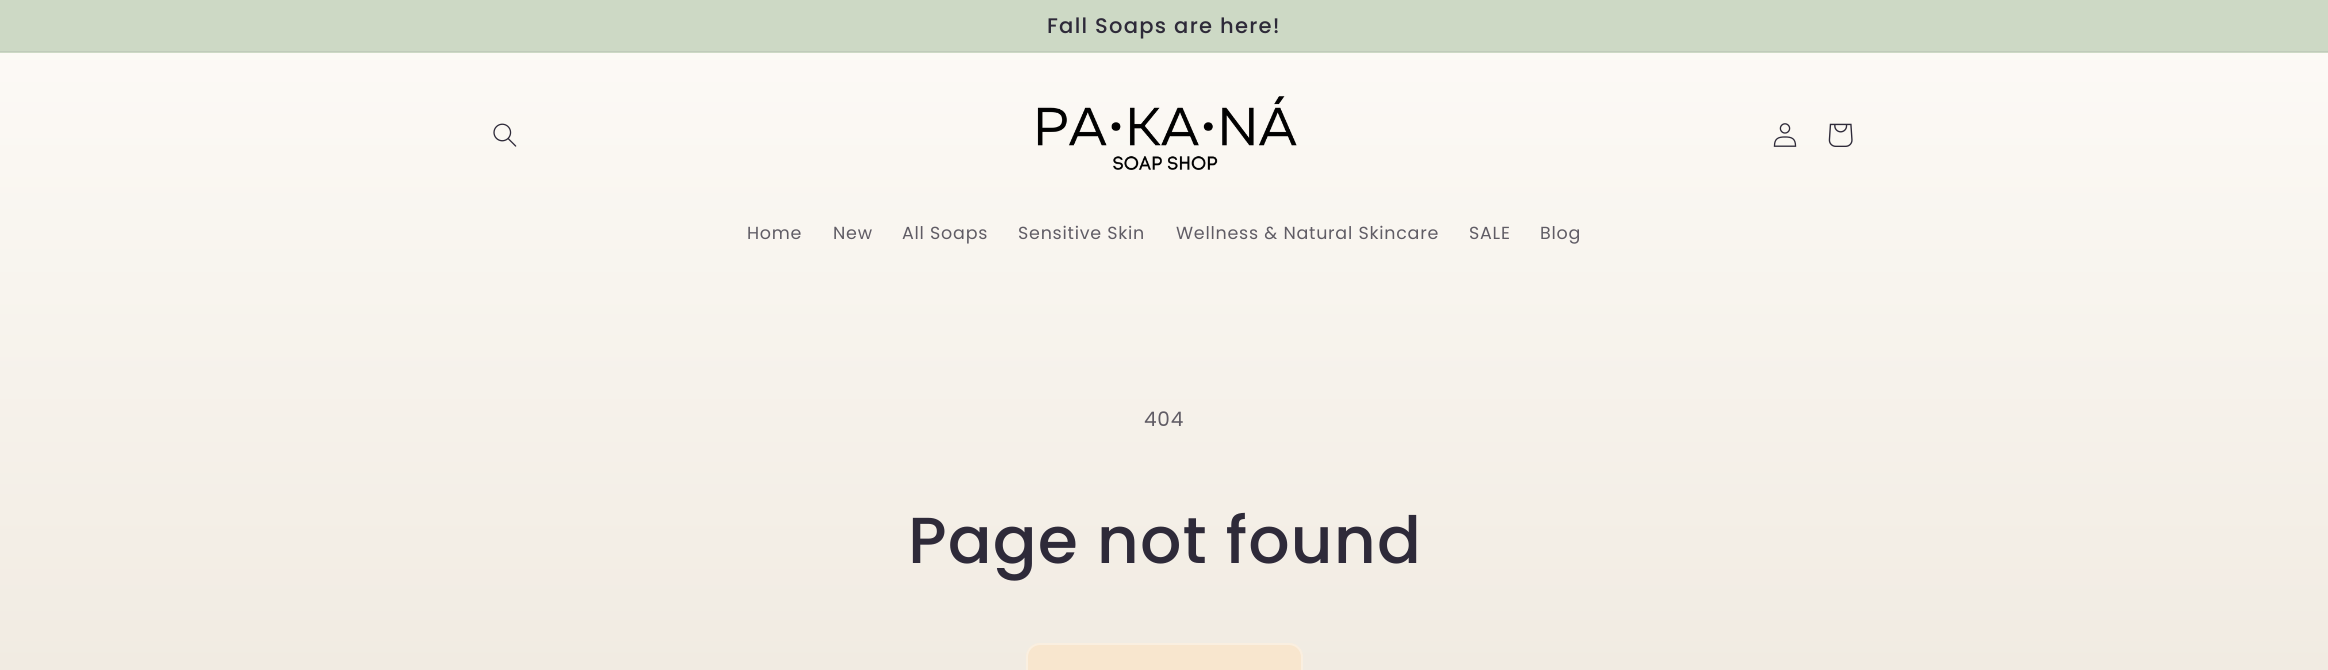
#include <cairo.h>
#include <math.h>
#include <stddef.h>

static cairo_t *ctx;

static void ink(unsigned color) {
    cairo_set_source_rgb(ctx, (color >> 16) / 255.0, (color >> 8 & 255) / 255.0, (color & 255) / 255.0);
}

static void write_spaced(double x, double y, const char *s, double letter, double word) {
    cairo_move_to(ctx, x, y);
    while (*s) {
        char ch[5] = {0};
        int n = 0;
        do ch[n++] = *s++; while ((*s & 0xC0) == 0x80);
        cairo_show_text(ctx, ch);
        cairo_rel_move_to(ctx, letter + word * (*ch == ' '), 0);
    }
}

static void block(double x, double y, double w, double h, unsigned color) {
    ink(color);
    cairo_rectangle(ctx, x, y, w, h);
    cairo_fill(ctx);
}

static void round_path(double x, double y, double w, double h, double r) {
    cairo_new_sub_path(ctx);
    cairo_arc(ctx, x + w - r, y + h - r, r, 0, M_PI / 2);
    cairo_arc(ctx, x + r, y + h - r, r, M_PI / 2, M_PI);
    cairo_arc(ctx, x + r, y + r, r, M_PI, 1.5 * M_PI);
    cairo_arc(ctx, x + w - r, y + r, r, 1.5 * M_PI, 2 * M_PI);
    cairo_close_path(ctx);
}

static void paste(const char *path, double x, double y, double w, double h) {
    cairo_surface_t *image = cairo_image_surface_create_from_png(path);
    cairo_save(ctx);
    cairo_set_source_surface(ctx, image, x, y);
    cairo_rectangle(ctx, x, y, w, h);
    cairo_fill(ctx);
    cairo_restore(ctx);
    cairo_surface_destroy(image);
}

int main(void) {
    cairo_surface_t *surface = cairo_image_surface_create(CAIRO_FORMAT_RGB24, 2328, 670);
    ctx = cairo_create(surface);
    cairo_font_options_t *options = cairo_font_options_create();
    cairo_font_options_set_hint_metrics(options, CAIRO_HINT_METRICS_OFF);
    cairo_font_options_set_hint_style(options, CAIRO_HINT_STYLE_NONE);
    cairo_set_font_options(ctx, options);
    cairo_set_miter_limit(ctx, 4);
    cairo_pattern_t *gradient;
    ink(0xffffff);
    cairo_paint(ctx);
    gradient = cairo_pattern_create_linear(1164, 0, 1164, 670);
    cairo_pattern_add_color_stop_rgba(gradient, 0, 0.992, 0.984, 0.969, 1);
    cairo_pattern_add_color_stop_rgba(gradient, 1, 0.945, 0.922, 0.886, 1);
    cairo_set_source(ctx, gradient);
    cairo_pattern_destroy(gradient);
    cairo_rectangle(ctx, 0, 53, 2328, 617);
    cairo_fill(ctx);
    block(0, 0, 2328, 53, 0xcdd9c5);
    block(0, 51, 2328, 1, 0xc0cbba);
    cairo_select_font_face(ctx, "Poppins Medium", CAIRO_FONT_SLANT_NORMAL, CAIRO_FONT_WEIGHT_NORMAL);
    cairo_set_font_size(ctx, 21.1);
    ink(0x2e2a39);
    write_spaced(1047, 33, "Fall Soaps are here!", 1.25, 0);
    paste("pic1.png", 493, 123, 24, 24);
    paste("pic2.png", 1037, 96, 260, 74);
    paste("pic3.png", 1773, 123, 24, 24);
    paste("pic4.png", 1828, 123, 25, 24);
    cairo_select_font_face(ctx, "Poppins", CAIRO_FONT_SLANT_NORMAL, CAIRO_FONT_WEIGHT_NORMAL);
    cairo_set_font_size(ctx, 17.5);
    ink(0x605c65);
    write_spaced(747, 239, "Home", 0.75, 0);
    write_spaced(833, 239, "New", 0.75, 0);
    write_spaced(902, 239, "All Soaps", 0.75, 0);
    write_spaced(1018, 239, "Sensitive Skin", 0.75, 0);
    write_spaced(1176, 239, "Wellness & Natural Skincare", 0.75, 0);
    write_spaced(1469, 239, "SALE", 0.75, 0);
    write_spaced(1540, 239, "Blog", 0.75, 0);
    cairo_set_font_size(ctx, 20);
    write_spaced(1144, 426, "404", 0.75, 0);
    cairo_select_font_face(ctx, "Poppins Medium", CAIRO_FONT_SLANT_NORMAL, CAIRO_FONT_WEIGHT_NORMAL);
    cairo_set_font_size(ctx, 65);
    ink(0x2e2a39);
    write_spaced(908, 563, "Page not found", 1, 0);
    ink(0xf8e6ce);
    round_path(1026.5, 643.5, 276, 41, 13.5);
    cairo_fill_preserve(ctx);
    cairo_set_line_width(ctx, 1);
    cairo_stroke(ctx);
    round_path(1027, 644, 275, 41, 13);
    cairo_set_source_rgba(ctx, 0.992, 0.984, 0.969, 0.45);
    cairo_set_line_width(ctx, 2);
    cairo_stroke(ctx);
    cairo_surface_write_to_png(surface, "screenshot.png");
    cairo_font_options_destroy(options);
    cairo_destroy(ctx);
    cairo_surface_destroy(surface);
    return 0;
}
